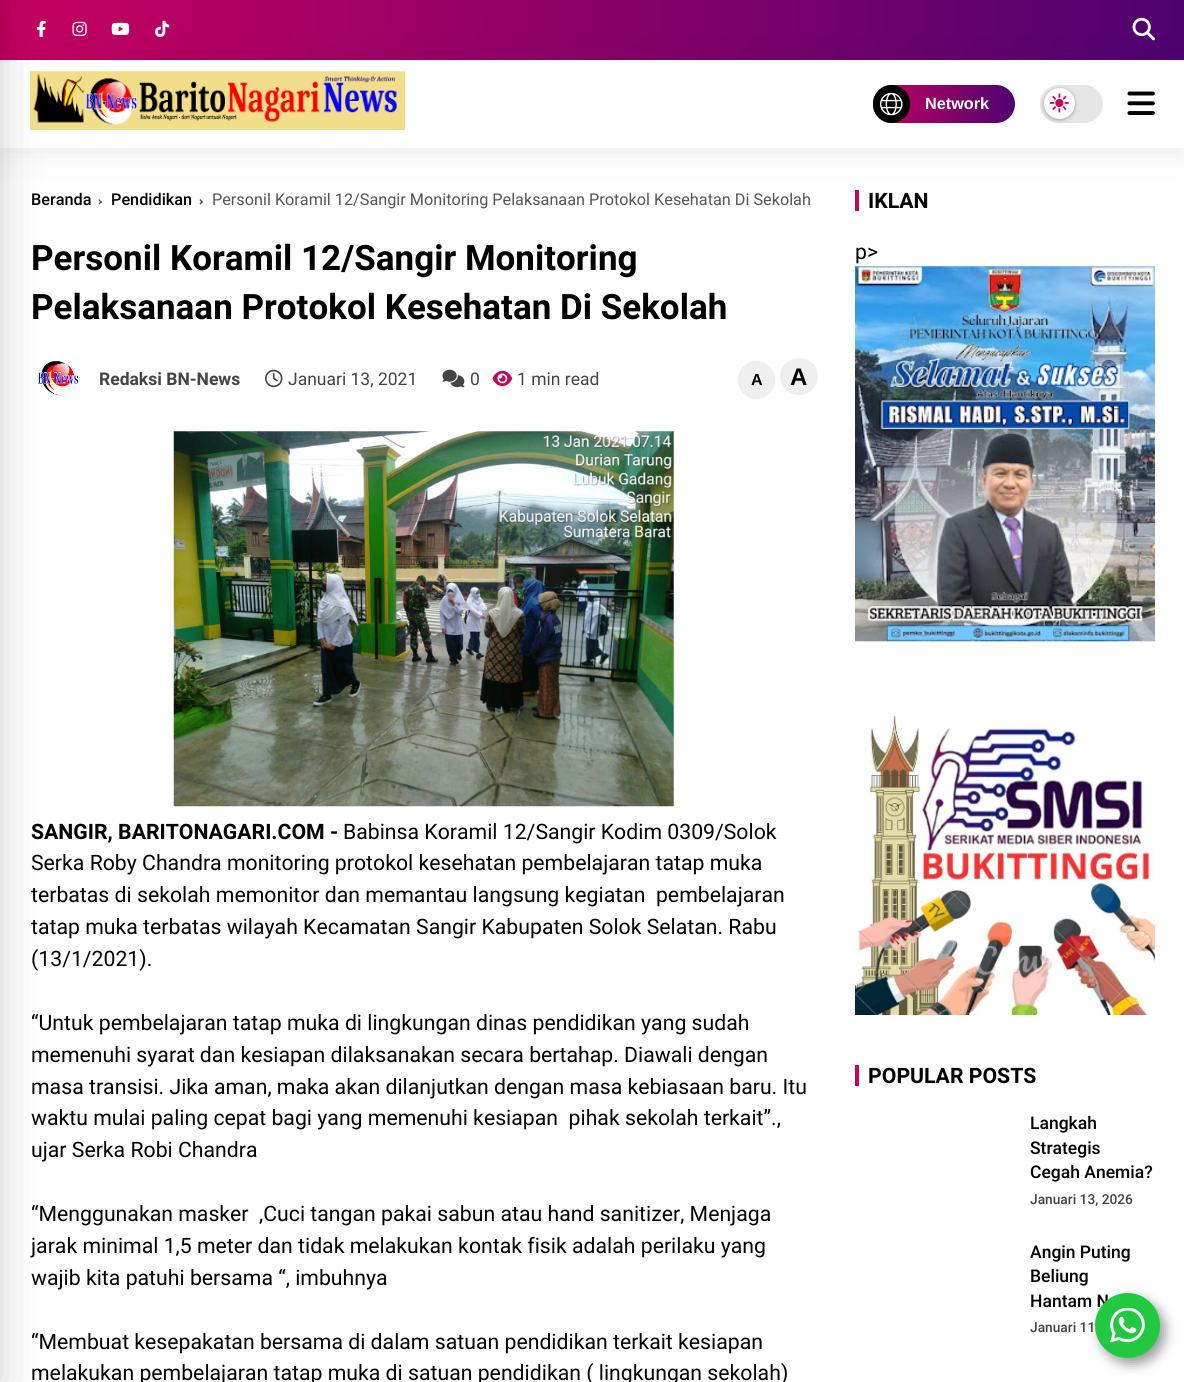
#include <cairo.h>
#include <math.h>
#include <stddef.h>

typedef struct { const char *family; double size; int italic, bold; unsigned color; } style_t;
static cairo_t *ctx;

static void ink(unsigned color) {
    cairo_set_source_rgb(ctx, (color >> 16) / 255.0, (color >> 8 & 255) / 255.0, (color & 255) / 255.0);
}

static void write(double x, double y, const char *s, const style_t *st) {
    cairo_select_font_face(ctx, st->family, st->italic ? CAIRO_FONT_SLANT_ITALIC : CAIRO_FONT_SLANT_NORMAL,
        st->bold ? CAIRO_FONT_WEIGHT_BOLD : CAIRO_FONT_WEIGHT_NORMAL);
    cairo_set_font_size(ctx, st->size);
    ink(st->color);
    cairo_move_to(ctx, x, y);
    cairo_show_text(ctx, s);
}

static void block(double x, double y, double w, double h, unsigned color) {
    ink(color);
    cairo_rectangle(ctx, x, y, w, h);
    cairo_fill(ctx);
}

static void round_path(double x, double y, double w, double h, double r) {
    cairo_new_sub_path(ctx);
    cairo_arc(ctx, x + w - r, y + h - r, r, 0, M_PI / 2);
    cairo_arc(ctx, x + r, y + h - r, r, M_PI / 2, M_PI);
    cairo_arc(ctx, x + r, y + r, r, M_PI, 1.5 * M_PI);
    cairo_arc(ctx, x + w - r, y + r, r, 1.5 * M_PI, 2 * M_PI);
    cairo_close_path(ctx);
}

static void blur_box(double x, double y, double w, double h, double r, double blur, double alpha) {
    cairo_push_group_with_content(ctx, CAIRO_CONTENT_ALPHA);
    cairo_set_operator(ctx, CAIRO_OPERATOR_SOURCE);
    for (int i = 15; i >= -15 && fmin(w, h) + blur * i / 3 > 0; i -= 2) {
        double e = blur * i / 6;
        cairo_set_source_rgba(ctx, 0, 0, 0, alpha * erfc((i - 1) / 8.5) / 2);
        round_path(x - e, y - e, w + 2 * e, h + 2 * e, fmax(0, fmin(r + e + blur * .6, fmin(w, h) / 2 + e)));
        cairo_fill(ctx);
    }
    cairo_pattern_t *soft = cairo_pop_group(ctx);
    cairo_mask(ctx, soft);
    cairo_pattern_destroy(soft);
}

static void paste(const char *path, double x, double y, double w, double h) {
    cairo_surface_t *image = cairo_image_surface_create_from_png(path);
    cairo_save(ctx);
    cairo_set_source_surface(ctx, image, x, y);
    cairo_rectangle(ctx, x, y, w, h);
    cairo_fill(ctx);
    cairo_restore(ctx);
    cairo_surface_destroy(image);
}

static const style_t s1 = {"Liberation Sans", 16.25, 0, 1, 0xffffff};
static const style_t s2 = {"Roboto Medium", 16.25, 0, 0, 0x000000};
static const style_t s3 = {"Roboto", 16.25, 0, 0, 0x555555};
static const style_t s4 = {"Roboto", 35, 0, 1, 0x000000};
static const style_t s5 = {"Roboto", 17.5, 0, 1, 0x444444};
static const style_t s6 = {"Roboto", 17.5, 0, 0, 0x444444};
static const style_t s7 = {"Liberation Sans", 16, 0, 1, 0x000000};
static const style_t s8 = {"Liberation Sans", 24, 0, 1, 0x000000};
static const style_t s9 = {"Roboto", 21.25, 0, 1, 0x000000};
static const style_t s10 = {"Roboto", 21.25, 0, 0, 0x000000};
static const style_t s11 = {"Roboto Medium", 17.5, 0, 0, 0x000000};
static const style_t s12 = {"Roboto Medium", 13.75, 0, 0, 0x444444};

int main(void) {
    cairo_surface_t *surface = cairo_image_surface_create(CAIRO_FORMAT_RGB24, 1184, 1382);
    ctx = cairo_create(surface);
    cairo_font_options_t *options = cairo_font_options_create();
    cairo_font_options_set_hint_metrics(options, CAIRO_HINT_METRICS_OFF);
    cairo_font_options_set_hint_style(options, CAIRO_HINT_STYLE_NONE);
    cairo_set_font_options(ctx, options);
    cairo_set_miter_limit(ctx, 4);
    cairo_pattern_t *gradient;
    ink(0xffffff);
    cairo_paint(ctx);
    gradient = cairo_pattern_create_linear(0, 30, 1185, 30);
    cairo_pattern_add_color_stop_rgba(gradient, 0, 0.776, 0, 0.373, 1);
    cairo_pattern_add_color_stop_rgba(gradient, 1, 0.302, 0.008, 0.439, 1);
    cairo_set_source(ctx, gradient);
    cairo_pattern_destroy(gradient);
    cairo_rectangle(ctx, 0, 0, 1184, 60);
    cairo_fill(ctx);
    paste("pic1.png", 37, 20, 9, 17);
    paste("pic2.png", 72, 21, 15, 15);
    paste("pic3.png", 111, 22, 19, 13);
    paste("pic4.png", 155, 20, 15, 17);
    paste("pic5.png", 1132, 17, 23, 24);
    ink(0x4e4d4d);
    cairo_new_path(ctx);
    cairo_move_to(ctx, 98.5, 200);
    cairo_line_to(ctx, 99, 199);
    cairo_line_to(ctx, 102, 202);
    cairo_line_to(ctx, 101, 203);
    cairo_close_path(ctx);
    cairo_fill(ctx);
    cairo_new_path(ctx);
    cairo_move_to(ctx, 98.5, 203.5);
    cairo_line_to(ctx, 101, 201);
    cairo_line_to(ctx, 102, 202);
    cairo_line_to(ctx, 99, 204.5);
    cairo_close_path(ctx);
    cairo_fill(ctx);
    cairo_new_path(ctx);
    cairo_move_to(ctx, 199.5, 200);
    cairo_line_to(ctx, 200.5, 199);
    cairo_line_to(ctx, 203, 202);
    cairo_line_to(ctx, 202, 203);
    cairo_close_path(ctx);
    cairo_fill(ctx);
    cairo_new_path(ctx);
    cairo_move_to(ctx, 199.5, 203.5);
    cairo_line_to(ctx, 202, 201);
    cairo_line_to(ctx, 203, 202);
    cairo_line_to(ctx, 200.5, 204.5);
    cairo_close_path(ctx);
    cairo_fill(ctx);
    block(855, 190, 4, 21, 0xc6005f);
    ink(0x000000);
    blur_box(0, 63, 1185, 87, 0, 17.5, 0.09);
    block(0, 60, 1184, 88, 0xffffff);
    paste("pic6.png", 30, 71, 375, 59);
    gradient = cairo_pattern_create_linear(873, 104, 1015, 104);
    cairo_pattern_add_color_stop_rgba(gradient, 0, 0.776, 0, 0.373, 1);
    cairo_pattern_add_color_stop_rgba(gradient, 1, 0.302, 0.008, 0.439, 1);
    cairo_set_source(ctx, gradient);
    cairo_pattern_destroy(gradient);
    round_path(873, 85, 142, 38, 19);
    cairo_fill(ctx);
    ink(0x000000);
    round_path(873, 85, 37, 38, 18.5);
    cairo_fill(ctx);
    paste("pic7.png", 880, 92, 23, 24);
    write(925, 109, "Network", &s1);
    ink(0xe6e6e6);
    round_path(1040, 85, 63, 38, 19);
    cairo_fill(ctx);
    ink(0x000000);
    blur_box(1044, 89, 31, 31, 15.5, 2, 0.3);
    ink(0xffffff);
    cairo_arc(ctx, 1059.5, 103.5, 15.5, 0, 2 * M_PI);
    cairo_fill(ctx);
    paste("pic8.png", 1050, 93, 19, 20);
    paste("pic9.png", 1127, 91, 28, 24);
    paste("pic10.png", 38, 361, 41, 35);
    ink(0x000000);
    blur_box(-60, 0, 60, 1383, 0, 20, 0.2);
    write(31, 205, "Beranda", &s2);
    write(111, 205, "Pendidikan", &s2);
    write(212, 205, "Personil Koramil 12/Sangir Monitoring Pelaksanaan Protokol Kesehatan Di Sekolah", &s3);
    write(31, 270, "Personil Koramil 12/Sangir Monitoring", &s4);
    write(31, 319, "Pelaksanaan Protokol Kesehatan Di Sekolah", &s4);
    write(99, 385, "Redaksi BN-News", &s5);
    paste("pic11.png", 265, 369, 18, 19);
    write(288, 385, "Januari 13, 2021", &s6);
    paste("pic12.png", 442, 369, 23, 19);
    write(470, 385, "0", &s6);
    paste("pic13.png", 492, 370, 21, 17);
    write(517, 385, "1 min read", &s6);
    ink(0xefefef);
    round_path(738, 361, 37, 38, 18.5);
    cairo_fill(ctx);
    write(751, 385, "A", &s7);
    ink(0xefefef);
    round_path(780, 358, 38, 37, 18.5);
    cairo_fill(ctx);
    write(790, 385, "A", &s8);
    paste("pic14.png", 173, 431, 501, 376);
    write(31, 839, "SANGIR, BARITONAGARI.COM -", &s9);
    write(343, 839, "Babinsa Koramil 12/Sangir Kodim 0309/Solok", &s10);
    write(31, 870, "Serka Roby Chandra monitoring protokol kesehatan pembelajaran tatap muka", &s10);
    write(31, 902, "terbatas di sekolah memonitor dan memantau langsung kegiatan  pembelajaran", &s10);
    write(31, 934, "tatap muka terbatas wilayah Kecamatan Sangir Kabupaten Solok Selatan. Rabu", &s10);
    write(31, 966, "(13/1/2021).", &s10);
    write(31, 1030, "“Untuk pembelajaran tatap muka di lingkungan dinas pendidikan yang sudah", &s10);
    write(31, 1062, "memenuhi syarat dan kesiapan dilaksanakan secara bertahap. Diawali dengan", &s10);
    write(31, 1094, "masa transisi. Jika aman, maka akan dilanjutkan dengan masa kebiasaan baru. Itu", &s10);
    write(31, 1125, "waktu mulai paling cepat bagi yang memenuhi kesiapan  pihak sekolah terkait”.,", &s10);
    write(31, 1157, "ujar Serka Robi Chandra", &s10);
    write(31, 1221, "“Menggunakan masker  ,Cuci tangan pakai sabun atau hand sanitizer, Menjaga", &s10);
    write(31, 1253, "jarak minimal 1,5 meter dan tidak melakukan kontak fisik adalah perilaku yang", &s10);
    write(31, 1285, "wajib kita patuhi bersama “, imbuhnya", &s10);
    write(31, 1349, "“Membuat kesepakatan bersama di dalam satuan pendidikan terkait kesiapan", &s10);
    write(31, 1380, "melakukan pembelajaran tatap muka di satuan pendidikan ( lingkungan sekolah)", &s10);
    write(868, 208, "IKLAN", &s9);
    write(855, 259, "p>", &s10);
    paste("pic15.png", 855, 266, 300, 376);
    paste("pic16.png", 855, 716, 300, 299);
    block(855, 1065, 4, 21, 0xc6005f);
    write(868, 1083, "POPULAR POSTS", &s9);
    write(1030, 1129, "Langkah", &s11);
    write(1030, 1154, "Strategis", &s11);
    write(1030, 1178, "Cegah Anemia?", &s11);
    write(1030, 1204, "Januari 13, 2026", &s12);
    write(1030, 1258, "Angin Puting", &s11);
    write(1030, 1282, "Beliung", &s11);
    write(1030, 1307, "Hantam N", &s11);
    write(1030, 1332, "Januari 11", &s12);
    ink(0x000000);
    blur_box(1100, 1299, 65, 65, 32.5, 6, 0.4);
    ink(0x21c940);
    cairo_arc(ctx, 1127.5, 1325.5, 32.5, 0, 2 * M_PI);
    cairo_fill(ctx);
    paste("pic17.png", 1110, 1308, 35, 35);
    cairo_surface_write_to_png(surface, "screenshot.png");
    cairo_font_options_destroy(options);
    cairo_destroy(ctx);
    cairo_surface_destroy(surface);
    return 0;
}
